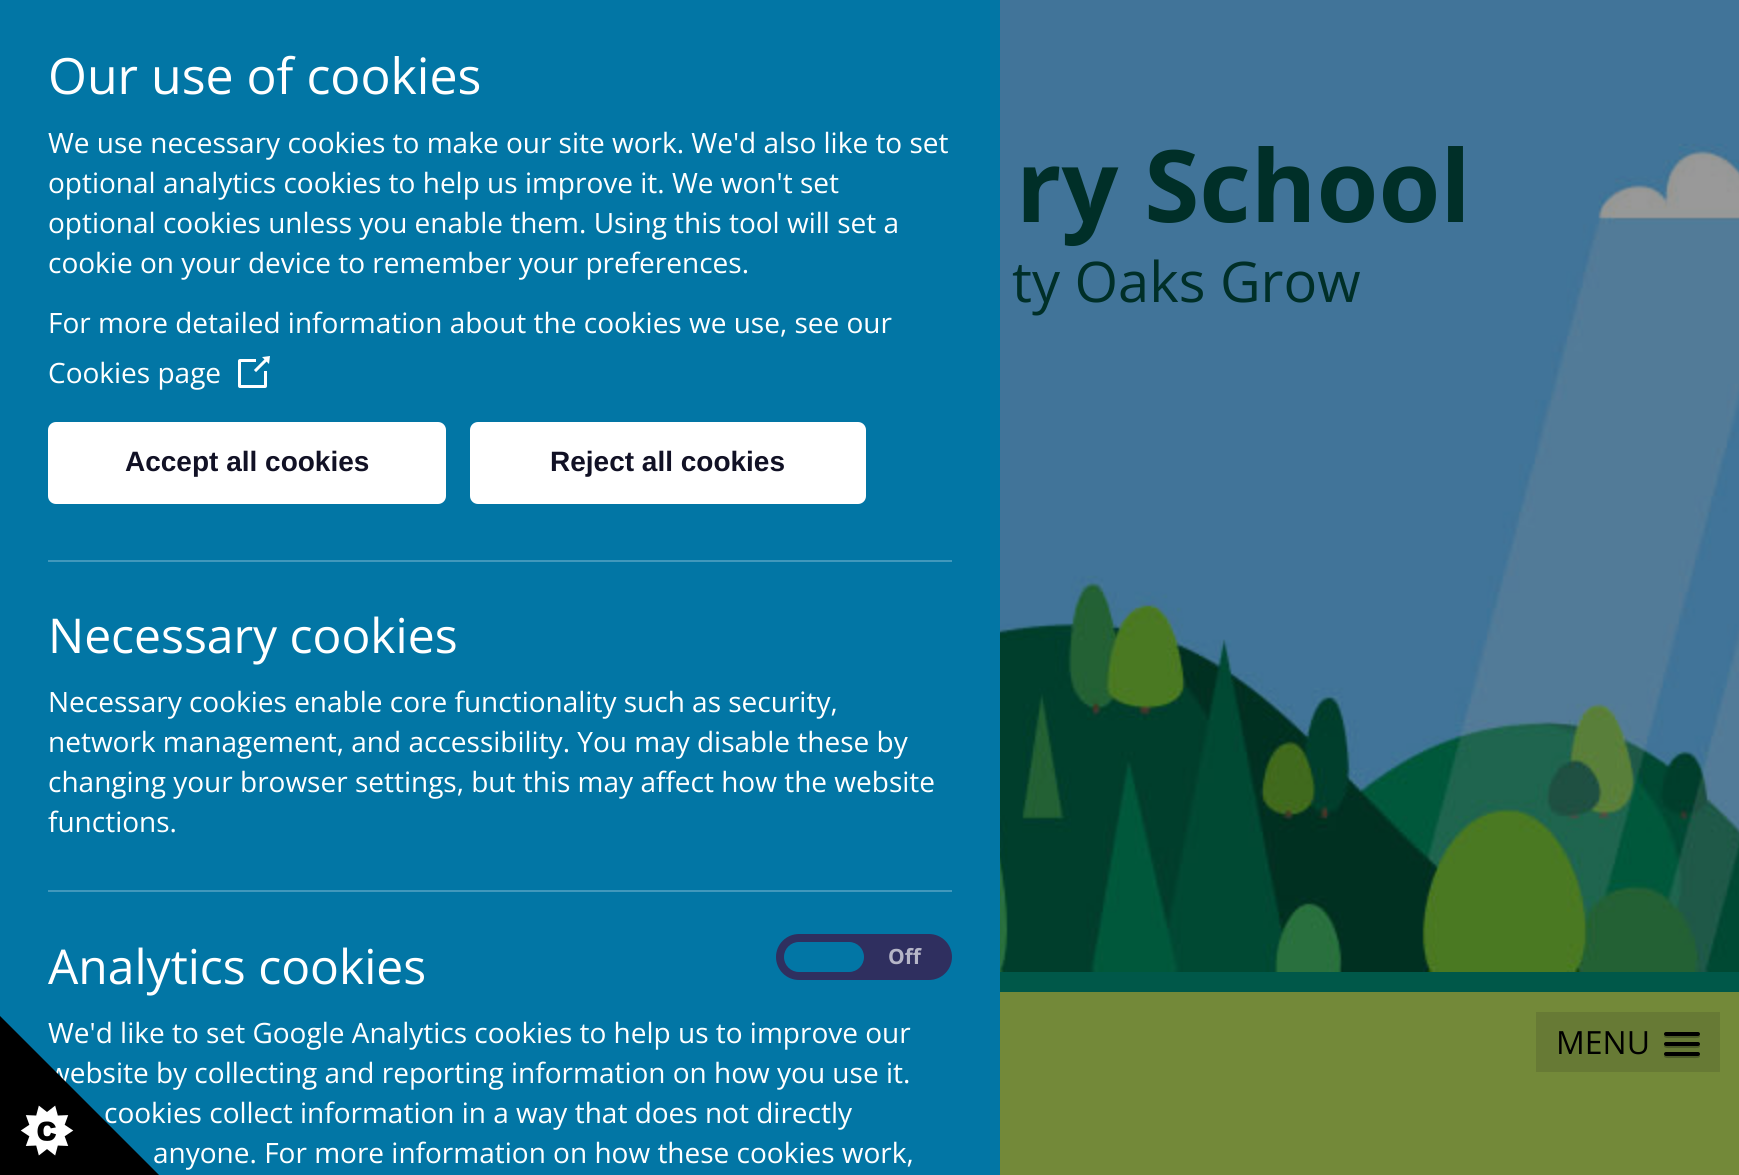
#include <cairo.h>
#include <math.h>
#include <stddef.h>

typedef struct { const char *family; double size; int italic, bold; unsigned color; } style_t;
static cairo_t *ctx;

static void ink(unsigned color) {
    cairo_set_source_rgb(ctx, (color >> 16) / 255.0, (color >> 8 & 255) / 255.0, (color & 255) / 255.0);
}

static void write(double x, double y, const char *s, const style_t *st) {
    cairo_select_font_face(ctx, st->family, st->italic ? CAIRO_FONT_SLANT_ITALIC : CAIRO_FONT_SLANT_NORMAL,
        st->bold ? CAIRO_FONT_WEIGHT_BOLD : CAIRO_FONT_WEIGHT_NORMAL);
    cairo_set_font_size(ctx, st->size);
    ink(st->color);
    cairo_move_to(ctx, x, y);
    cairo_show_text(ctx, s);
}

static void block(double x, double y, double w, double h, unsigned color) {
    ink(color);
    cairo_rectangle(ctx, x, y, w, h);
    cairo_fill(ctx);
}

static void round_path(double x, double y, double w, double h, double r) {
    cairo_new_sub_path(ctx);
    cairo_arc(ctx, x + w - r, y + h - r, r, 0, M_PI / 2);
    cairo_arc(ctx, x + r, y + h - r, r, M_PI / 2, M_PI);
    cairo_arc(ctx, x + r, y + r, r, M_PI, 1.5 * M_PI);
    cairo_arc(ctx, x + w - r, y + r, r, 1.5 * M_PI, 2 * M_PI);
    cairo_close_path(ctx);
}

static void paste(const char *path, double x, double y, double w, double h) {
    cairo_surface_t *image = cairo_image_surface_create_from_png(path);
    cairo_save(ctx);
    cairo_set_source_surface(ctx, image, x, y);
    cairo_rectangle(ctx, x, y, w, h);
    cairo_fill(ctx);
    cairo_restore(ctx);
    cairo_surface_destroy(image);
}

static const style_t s1 = {"Open Sans", 50, 0, 0, 0xffffff};
static const style_t s2 = {"Open Sans", 28, 0, 0, 0xffffff};
static const style_t s3 = {"Liberation Sans", 28, 0, 1, 0x111125};
static const style_t s4 = {"Open Sans", 48, 0, 0, 0xffffff};
static const style_t s5 = {"Open Sans", 21, 0, 1, 0xb6b6c7};
static const style_t s6 = {"Open Sans", 100, 0, 1, 0x002f28};
static const style_t s7 = {"Open Sans", 56, 0, 0, 0x002f28};
static const style_t s8 = {"Open Sans", 32, 0, 0, 0x000000};

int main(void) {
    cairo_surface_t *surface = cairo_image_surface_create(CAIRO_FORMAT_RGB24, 1739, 1175);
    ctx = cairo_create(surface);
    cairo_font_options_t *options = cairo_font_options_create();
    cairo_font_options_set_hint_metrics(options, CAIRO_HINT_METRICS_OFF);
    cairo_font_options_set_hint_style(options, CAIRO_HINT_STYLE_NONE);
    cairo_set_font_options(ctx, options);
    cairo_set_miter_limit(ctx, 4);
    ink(0x005849);
    cairo_paint(ctx);
    block(0, 0, 1000, 1175, 0x0276a5);
    write(48, 94, "Our use of cookies", &s1);
    write(48, 153, "We use necessary cookies to make our site work. We'd also like to set", &s2);
    write(48, 193, "optional analytics cookies to help us improve it. We won't set", &s2);
    write(48, 233, "optional cookies unless you enable them. Using this tool will set a", &s2);
    write(48, 273, "cookie on your device to remember your preferences.", &s2);
    write(48, 333, "For more detailed information about the cookies we use, see our", &s2);
    write(48, 383, "Cookies page", &s2);
    paste("pic1.png", 238, 356, 32, 32);
    round_path(50, 424, 394, 78, 6);
    cairo_fill_preserve(ctx);
    cairo_set_line_width(ctx, 4);
    cairo_stroke(ctx);
    write(125, 471, "Accept all cookies", &s3);
    ink(0xffffff);
    round_path(472, 424, 392, 78, 6);
    cairo_fill_preserve(ctx);
    cairo_stroke(ctx);
    write(550, 471, "Reject all cookies", &s3);
    block(48, 560, 904, 2, 0x4198bc);
    write(48, 653, "Necessary cookies", &s4);
    write(48, 712, "Necessary cookies enable core functionality such as security,", &s2);
    write(48, 752, "network management, and accessibility. You may disable these by", &s2);
    write(48, 792, "changing your browser settings, but this may affect how the website", &s2);
    write(48, 832, "functions.", &s2);
    block(48, 890, 904, 2, 0x4198bc);
    write(48, 984, "Analytics cookies", &s4);
    ink(0x2f2f5f);
    round_path(780, 938, 168, 38, 19);
    cairo_fill_preserve(ctx);
    cairo_set_line_width(ctx, 8);
    cairo_stroke(ctx);
    ink(0x0276a5);
    round_path(784, 942, 80, 30, 15);
    cairo_fill(ctx);
    write(888, 964, "Off", &s5);
    write(48, 1043, "We'd like to set Google Analytics cookies to help us to improve our", &s2);
    write(48, 1083, "website by collecting and reporting information on how you use it.", &s2);
    write(104, 1123, "cookies collect information in a way that does not directly", &s2);
    write(153, 1163, "anyone. For more information on how these cookies work,", &s2);
    paste("pic2.png", 0, 1016, 159, 159);
    paste("pic3.png", 1000, 0, 739, 972);
    write(1016, 222, "ry School", &s6);
    write(1012, 302, "ty Oaks Grow", &s7);
    block(1000, 992, 739, 183, 0x738939);
    block(1536, 1012, 184, 60, 0x677a35);
    write(1556, 1054, "MENU", &s8);
    ink(0x4d5c28);
    cairo_new_path(ctx);
    cairo_move_to(ctx, 1664.5, 1035);
    cairo_curve_to(ctx, 1662, 1039, 1671, 1038, 1671.5, 1038);
    cairo_line_to(ctx, 1692.5, 1038);
    cairo_curve_to(ctx, 1693, 1038, 1702, 1039, 1699.5, 1035);
    cairo_curve_to(ctx, 1699.5, 1035.5, 1698.5, 1036, 1698, 1036);
    cairo_line_to(ctx, 1666, 1036);
    cairo_curve_to(ctx, 1665.5, 1036, 1664.5, 1035.5, 1664.5, 1035);
    cairo_close_path(ctx);
    cairo_fill(ctx);
    ink(0x000000);
    round_path(1664, 1032, 36, 4, 2);
    cairo_fill(ctx);
    ink(0x4d5c28);
    cairo_new_path(ctx);
    cairo_move_to(ctx, 1664.5, 1045);
    cairo_curve_to(ctx, 1662, 1049, 1671, 1048, 1671.5, 1048);
    cairo_line_to(ctx, 1692.5, 1048);
    cairo_curve_to(ctx, 1693, 1048, 1702, 1049, 1699.5, 1045);
    cairo_curve_to(ctx, 1699.5, 1045.5, 1698.5, 1046, 1698, 1046);
    cairo_line_to(ctx, 1666, 1046);
    cairo_curve_to(ctx, 1665.5, 1046, 1664.5, 1045.5, 1664.5, 1045);
    cairo_close_path(ctx);
    cairo_fill(ctx);
    ink(0x000000);
    round_path(1664, 1042, 36, 4, 2);
    cairo_fill(ctx);
    ink(0x4d5c28);
    cairo_new_path(ctx);
    cairo_move_to(ctx, 1664.5, 1055);
    cairo_curve_to(ctx, 1662, 1059, 1671, 1058, 1671.5, 1058);
    cairo_line_to(ctx, 1692.5, 1058);
    cairo_curve_to(ctx, 1693, 1058, 1702, 1059, 1699.5, 1055);
    cairo_curve_to(ctx, 1699.5, 1055.5, 1698.5, 1056, 1698, 1056);
    cairo_line_to(ctx, 1666, 1056);
    cairo_curve_to(ctx, 1665.5, 1056, 1664.5, 1055.5, 1664.5, 1055);
    cairo_close_path(ctx);
    cairo_fill(ctx);
    ink(0x000000);
    round_path(1664, 1052, 36, 4, 2);
    cairo_fill(ctx);
    cairo_surface_write_to_png(surface, "screenshot.png");
    cairo_font_options_destroy(options);
    cairo_destroy(ctx);
    cairo_surface_destroy(surface);
    return 0;
}
